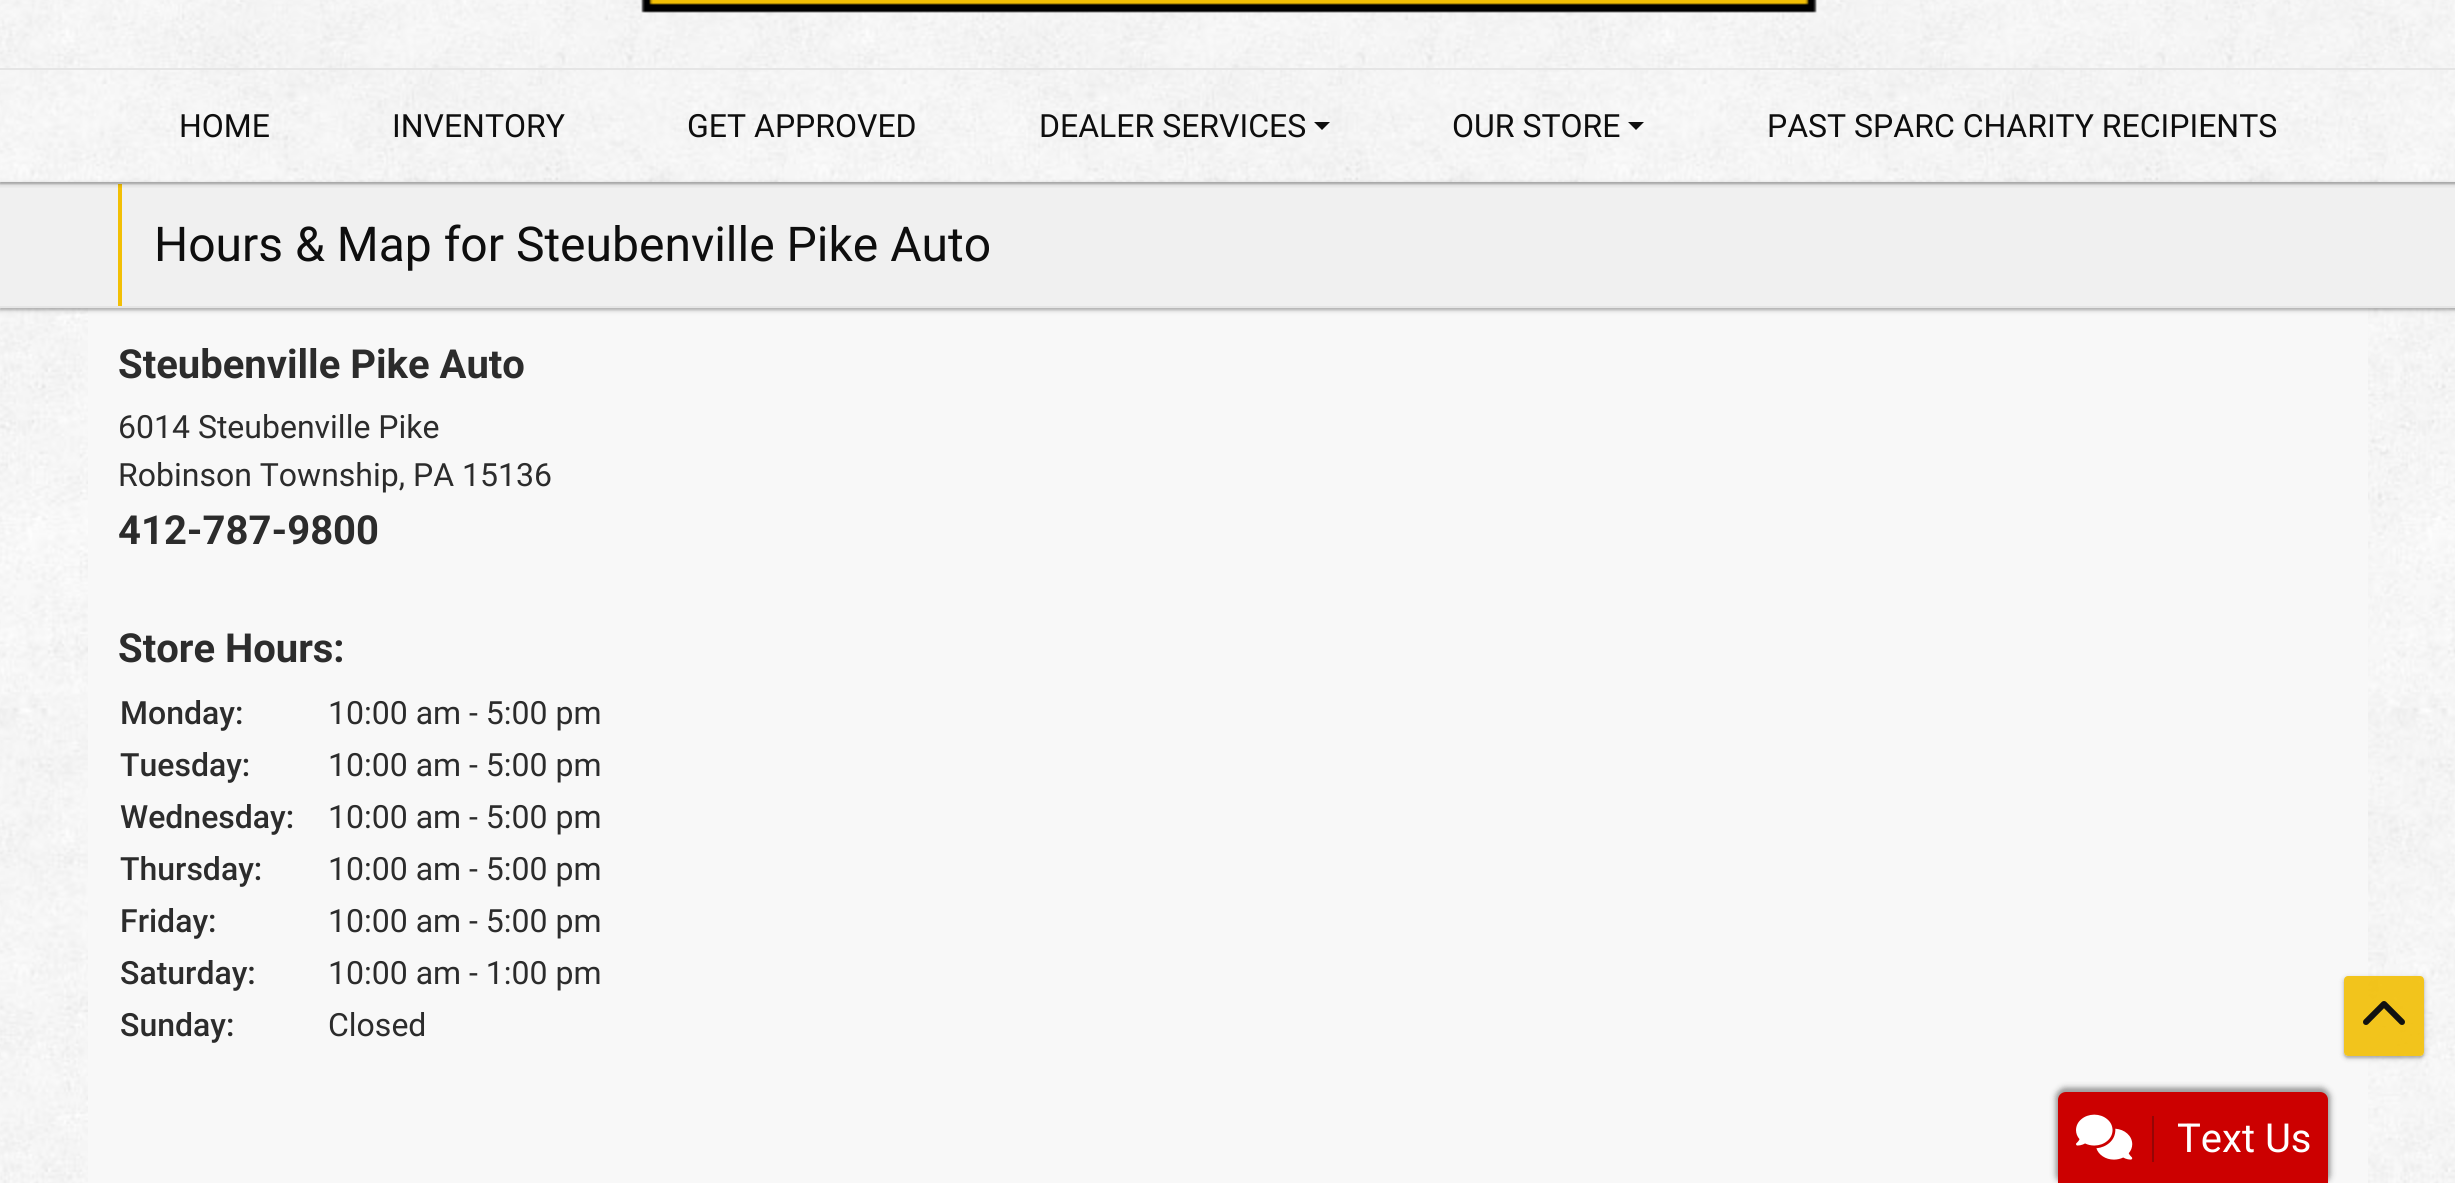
#include <cairo.h>
#include <math.h>
#include <stddef.h>

typedef struct { const char *family; double size; int italic, bold; unsigned color; } style_t;
static cairo_t *ctx;

static void ink(unsigned color) {
    cairo_set_source_rgb(ctx, (color >> 16) / 255.0, (color >> 8 & 255) / 255.0, (color & 255) / 255.0);
}

static void write(double x, double y, const char *s, const style_t *st) {
    cairo_select_font_face(ctx, st->family, st->italic ? CAIRO_FONT_SLANT_ITALIC : CAIRO_FONT_SLANT_NORMAL,
        st->bold ? CAIRO_FONT_WEIGHT_BOLD : CAIRO_FONT_WEIGHT_NORMAL);
    cairo_set_font_size(ctx, st->size);
    ink(st->color);
    cairo_move_to(ctx, x, y);
    cairo_show_text(ctx, s);
}

static void block(double x, double y, double w, double h, unsigned color) {
    ink(color);
    cairo_rectangle(ctx, x, y, w, h);
    cairo_fill(ctx);
}

static void round_path(double x, double y, double w, double h, double r) {
    cairo_new_sub_path(ctx);
    cairo_arc(ctx, x + w - r, y + h - r, r, 0, M_PI / 2);
    cairo_arc(ctx, x + r, y + h - r, r, M_PI / 2, M_PI);
    cairo_arc(ctx, x + r, y + r, r, M_PI, 1.5 * M_PI);
    cairo_arc(ctx, x + w - r, y + r, r, 1.5 * M_PI, 2 * M_PI);
    cairo_close_path(ctx);
}

static void blur_box(double x, double y, double w, double h, double r, double blur, double alpha) {
    cairo_push_group_with_content(ctx, CAIRO_CONTENT_ALPHA);
    cairo_set_operator(ctx, CAIRO_OPERATOR_SOURCE);
    for (int i = 15; i >= -15 && fmin(w, h) + blur * i / 3 > 0; i -= 2) {
        double e = blur * i / 6;
        cairo_set_source_rgba(ctx, 0, 0, 0, alpha * erfc((i - 1) / 8.5) / 2);
        round_path(x - e, y - e, w + 2 * e, h + 2 * e, fmax(0, fmin(r + e + blur * .6, fmin(w, h) / 2 + e)));
        cairo_fill(ctx);
    }
    cairo_pattern_t *soft = cairo_pop_group(ctx);
    cairo_mask(ctx, soft);
    cairo_pattern_destroy(soft);
}

static void paste(const char *path, double x, double y, double w, double h) {
    cairo_surface_t *image = cairo_image_surface_create_from_png(path);
    cairo_save(ctx);
    cairo_set_source_surface(ctx, image, x, y);
    cairo_rectangle(ctx, x, y, w, h);
    cairo_fill(ctx);
    cairo_restore(ctx);
    cairo_surface_destroy(image);
}

static const style_t s1 = {"Roboto", 32, 0, 0, 0x0e0e0e};
static const style_t s2 = {"Roboto", 48, 0, 0, 0x0e0e0e};
static const style_t s3 = {"Roboto", 40, 0, 1, 0x2c2c2c};
static const style_t s4 = {"Roboto", 32, 0, 0, 0x2c2c2c};
static const style_t s5 = {"Roboto Medium", 32, 0, 0, 0x2c2c2c};
static const style_t s6 = {"Roboto", 40, 0, 0, 0xffffff};

int main(void) {
    cairo_surface_t *surface = cairo_image_surface_create(CAIRO_FORMAT_RGB24, 2455, 1183);
    ctx = cairo_create(surface);
    cairo_font_options_t *options = cairo_font_options_create();
    cairo_font_options_set_hint_metrics(options, CAIRO_HINT_METRICS_OFF);
    cairo_font_options_set_hint_style(options, CAIRO_HINT_STYLE_NONE);
    cairo_set_font_options(ctx, options);
    cairo_set_miter_limit(ctx, 4);
    ink(0xffffff);
    cairo_paint(ctx);
    paste("pic1.png", 0, 0, 2455, 1183);
    block(88, 308, 2280, 875, 0xf8f8f8);
    ink(0x000000);
    blur_box(0, 184, 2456, 126, 0, 1, 0.2);
    blur_box(-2, 182, 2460, 130, 0, 2, 0.1);
    block(0, 184, 2455, 122, 0xf0f0f0);
    block(0, 182, 2455, 2, 0xe5e5e5);
    block(118, 184, 4, 122, 0xf2bf05);
    cairo_save(ctx);
    cairo_rectangle(ctx, 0, 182, 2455, 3);
    cairo_clip(ctx);
    ink(0x000000);
    blur_box(0, -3, 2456, 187, 0, 1, 0.2);
    cairo_restore(ctx);
    cairo_save(ctx);
    cairo_rectangle(ctx, 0, 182, 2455, 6);
    cairo_clip(ctx);
    ink(0x000000);
    blur_box(-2, -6, 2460, 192, 0, 2, 0.1);
    cairo_restore(ctx);
    paste("pic2.png", 641, 0, 1176, 13);
    block(0, 68, 2455, 2, 0xe5e5e5);
    write(179, 137, "HOME", &s1);
    write(392, 137, "INVENTORY", &s1);
    write(687, 137, "GET APPROVED", &s1);
    write(1039, 137, "DEALER SERVICES", &s1);
    cairo_new_path(ctx);
    cairo_move_to(ctx, 1314, 122);
    cairo_line_to(ctx, 1330, 122);
    cairo_line_to(ctx, 1322, 130);
    cairo_close_path(ctx);
    cairo_fill(ctx);
    write(1452, 137, "OUR STORE", &s1);
    cairo_new_path(ctx);
    cairo_move_to(ctx, 1628, 122);
    cairo_line_to(ctx, 1644, 122);
    cairo_line_to(ctx, 1636, 130);
    cairo_close_path(ctx);
    cairo_fill(ctx);
    write(1767, 137, "PAST SPARC CHARITY RECIPIENTS", &s1);
    block(0, 306, 2455, 2, 0xe5e5e5);
    write(154, 261, "Hours & Map for Steubenville Pike Auto", &s2);
    write(118, 378, "Steubenville Pike Auto", &s3);
    write(118, 438, "6014 Steubenville Pike", &s4);
    write(118, 486, "Robinson Township, PA 15136", &s4);
    write(118, 544, "412-787-9800", &s3);
    write(118, 662, "Store Hours:", &s3);
    write(120, 724, "Monday:", &s5);
    write(328, 724, "10:00 am - 5:00 pm", &s4);
    write(120, 776, "Tuesday:", &s5);
    write(328, 776, "10:00 am - 5:00 pm", &s4);
    write(120, 828, "Wednesday:", &s5);
    write(328, 828, "10:00 am - 5:00 pm", &s4);
    write(120, 880, "Thursday:", &s5);
    write(328, 880, "10:00 am - 5:00 pm", &s4);
    write(120, 932, "Friday:", &s5);
    write(328, 932, "10:00 am - 5:00 pm", &s4);
    write(120, 984, "Saturday:", &s5);
    write(328, 984, "10:00 am - 1:00 pm", &s4);
    write(120, 1036, "Sunday:", &s5);
    write(328, 1036, "Closed", &s4);
    cairo_save(ctx);
    cairo_set_fill_rule(ctx, CAIRO_FILL_RULE_EVEN_ODD);
    cairo_new_path(ctx);
    cairo_move_to(ctx, 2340, 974);
    cairo_line_to(ctx, 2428, 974);
    cairo_line_to(ctx, 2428, 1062);
    cairo_line_to(ctx, 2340, 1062);
    cairo_close_path(ctx);
    cairo_move_to(ctx, 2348, 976);
    cairo_line_to(ctx, 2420, 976);
    cairo_curve_to(ctx, 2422, 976, 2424, 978, 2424, 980);
    cairo_line_to(ctx, 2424, 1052);
    cairo_curve_to(ctx, 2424, 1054, 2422, 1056, 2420, 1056);
    cairo_line_to(ctx, 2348, 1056);
    cairo_curve_to(ctx, 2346, 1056, 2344, 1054, 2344, 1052);
    cairo_line_to(ctx, 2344, 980);
    cairo_curve_to(ctx, 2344, 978, 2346, 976, 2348, 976);
    cairo_close_path(ctx);
    cairo_clip(ctx);
    ink(0x000000);
    blur_box(2344, 978, 80, 80, 4, 1, 0.2);
    cairo_restore(ctx);
    cairo_save(ctx);
    cairo_set_fill_rule(ctx, CAIRO_FILL_RULE_EVEN_ODD);
    cairo_new_path(ctx);
    cairo_move_to(ctx, 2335, 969);
    cairo_line_to(ctx, 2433, 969);
    cairo_line_to(ctx, 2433, 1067);
    cairo_line_to(ctx, 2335, 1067);
    cairo_close_path(ctx);
    cairo_move_to(ctx, 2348, 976);
    cairo_line_to(ctx, 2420, 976);
    cairo_curve_to(ctx, 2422, 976, 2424, 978, 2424, 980);
    cairo_line_to(ctx, 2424, 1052);
    cairo_curve_to(ctx, 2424, 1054, 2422, 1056, 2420, 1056);
    cairo_line_to(ctx, 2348, 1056);
    cairo_curve_to(ctx, 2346, 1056, 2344, 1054, 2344, 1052);
    cairo_line_to(ctx, 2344, 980);
    cairo_curve_to(ctx, 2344, 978, 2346, 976, 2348, 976);
    cairo_close_path(ctx);
    cairo_clip(ctx);
    ink(0x000000);
    blur_box(2342, 976, 84, 84, 6, 2, 0.1);
    cairo_restore(ctx);
    cairo_set_source_rgba(ctx, 0.949, 0.749, 0.02, 0.9);
    round_path(2344, 976, 80, 80, 4);
    cairo_fill(ctx);
    paste("pic3.png", 2363, 1001, 42, 24);
    ink(0x000000);
    blur_box(2056, 1088, 274, 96, 10, 2, 0.25);
    blur_box(2054, 1086, 278, 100, 12, 3, 0.15);
    ink(0xcc0000);
    cairo_new_path(ctx);
    cairo_move_to(ctx, 2066, 1092);
    cairo_line_to(ctx, 2320, 1092);
    cairo_curve_to(ctx, 2324.5, 1092, 2328, 1095.5, 2328, 1100);
    cairo_line_to(ctx, 2328, 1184);
    cairo_line_to(ctx, 2058, 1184);
    cairo_line_to(ctx, 2058, 1100);
    cairo_curve_to(ctx, 2058, 1095.5, 2061.5, 1092, 2066, 1092);
    cairo_close_path(ctx);
    cairo_fill(ctx);
    block(2152, 1116, 2, 46, 0x940505);
    paste("pic4.png", 2076, 1114, 57, 46);
    write(2177, 1152, "Text Us", &s6);
    cairo_surface_write_to_png(surface, "screenshot.png");
    cairo_font_options_destroy(options);
    cairo_destroy(ctx);
    cairo_surface_destroy(surface);
    return 0;
}
